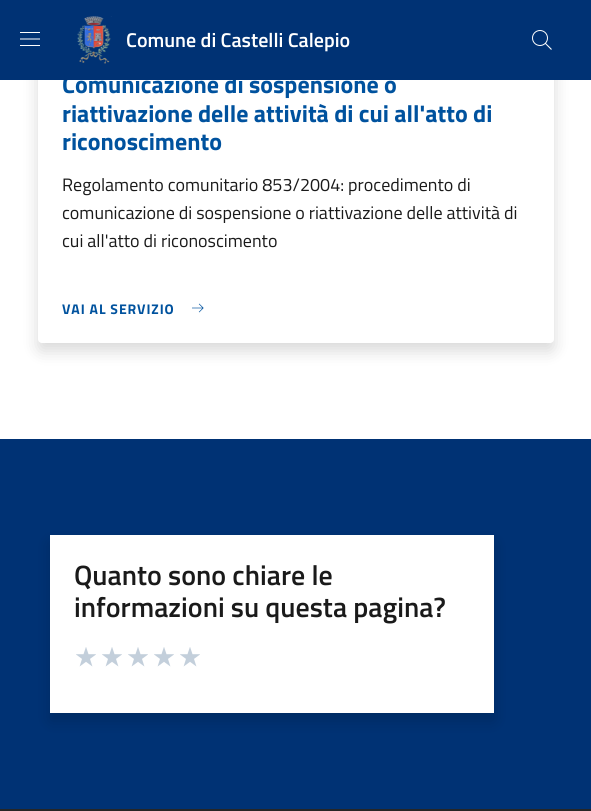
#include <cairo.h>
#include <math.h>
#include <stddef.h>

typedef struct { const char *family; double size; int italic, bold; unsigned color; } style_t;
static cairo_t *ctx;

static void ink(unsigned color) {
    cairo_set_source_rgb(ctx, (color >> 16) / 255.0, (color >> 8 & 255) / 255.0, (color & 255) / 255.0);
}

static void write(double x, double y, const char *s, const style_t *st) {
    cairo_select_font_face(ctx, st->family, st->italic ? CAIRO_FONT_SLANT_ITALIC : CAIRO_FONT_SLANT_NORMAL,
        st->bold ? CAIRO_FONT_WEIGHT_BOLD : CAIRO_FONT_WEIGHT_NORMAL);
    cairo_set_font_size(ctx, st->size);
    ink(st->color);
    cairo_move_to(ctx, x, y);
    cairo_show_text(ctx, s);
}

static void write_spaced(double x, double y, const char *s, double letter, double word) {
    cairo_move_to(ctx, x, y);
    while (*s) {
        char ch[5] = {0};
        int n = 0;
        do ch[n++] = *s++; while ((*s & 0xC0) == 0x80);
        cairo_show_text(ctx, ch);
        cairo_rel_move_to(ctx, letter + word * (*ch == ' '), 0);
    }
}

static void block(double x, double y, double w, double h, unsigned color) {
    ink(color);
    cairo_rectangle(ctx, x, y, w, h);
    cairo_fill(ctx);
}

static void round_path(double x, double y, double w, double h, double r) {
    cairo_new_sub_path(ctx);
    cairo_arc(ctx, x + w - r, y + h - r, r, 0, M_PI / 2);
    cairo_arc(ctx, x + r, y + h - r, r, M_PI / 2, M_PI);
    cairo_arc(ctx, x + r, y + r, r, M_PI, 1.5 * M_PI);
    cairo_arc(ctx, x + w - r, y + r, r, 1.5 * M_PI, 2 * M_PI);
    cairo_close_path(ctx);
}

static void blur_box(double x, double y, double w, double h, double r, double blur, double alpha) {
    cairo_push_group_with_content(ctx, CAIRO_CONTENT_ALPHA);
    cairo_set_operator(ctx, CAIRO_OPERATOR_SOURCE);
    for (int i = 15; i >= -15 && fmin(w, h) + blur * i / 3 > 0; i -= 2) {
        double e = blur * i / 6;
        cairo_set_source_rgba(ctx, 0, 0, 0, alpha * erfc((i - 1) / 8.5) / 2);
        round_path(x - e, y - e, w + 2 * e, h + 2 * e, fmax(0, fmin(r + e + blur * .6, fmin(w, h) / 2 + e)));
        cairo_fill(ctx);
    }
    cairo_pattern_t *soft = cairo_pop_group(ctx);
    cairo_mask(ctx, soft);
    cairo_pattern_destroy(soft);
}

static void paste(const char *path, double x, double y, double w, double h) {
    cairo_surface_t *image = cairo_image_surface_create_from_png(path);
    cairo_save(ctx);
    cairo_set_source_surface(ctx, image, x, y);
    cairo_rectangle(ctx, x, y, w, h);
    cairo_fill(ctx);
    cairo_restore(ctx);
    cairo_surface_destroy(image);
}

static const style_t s1 = {"Titillium Web", 24, 0, 1, 0x00529e};
static const style_t s2 = {"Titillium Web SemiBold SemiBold", 20, 0, 0, 0xffffff};
static const style_t s3 = {"Titillium Web", 18, 0, 0, 0x1a1a1a};
static const style_t s4 = {"Titillium Web SemiBold SemiBold", 28, 0, 0, 0x1a1a1a};

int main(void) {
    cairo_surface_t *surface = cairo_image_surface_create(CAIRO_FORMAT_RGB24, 591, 811);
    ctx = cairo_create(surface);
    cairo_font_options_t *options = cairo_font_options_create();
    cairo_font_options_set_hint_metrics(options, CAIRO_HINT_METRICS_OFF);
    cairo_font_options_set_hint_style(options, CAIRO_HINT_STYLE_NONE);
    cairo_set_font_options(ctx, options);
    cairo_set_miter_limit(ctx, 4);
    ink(0xffffff);
    cairo_paint(ctx);
    ink(0x000000);
    blur_box(38, 54, 516, 297, 4, 8, 0.15);
    ink(0xffffff);
    round_path(38, 46, 516, 297, 4);
    cairo_fill(ctx);
    write(62, 93, "Comunicazione di sospensione o", &s1);
    block(0, 0, 591, 80, 0x003274);
    paste("pic1.png", 20, 32, 20, 14);
    paste("pic2.png", 77, 16, 35, 48);
    write(126, 47, "Comune di Castelli Calepio", &s2);
    paste("pic3.png", 532, 30, 20, 20);
    write(62, 122, "riattivazione delle attività di cui all'atto di", &s1);
    write(62, 150, "riconoscimento", &s1);
    write(62, 191, "Regolamento comunitario 853/2004: procedimento di", &s3);
    write(62, 219, "comunicazione di sospensione o riattivazione delle attività di", &s3);
    write(62, 247, "cui all'atto di riconoscimento", &s3);
    cairo_select_font_face(ctx, "Titillium Web", CAIRO_FONT_SLANT_NORMAL, CAIRO_FONT_WEIGHT_BOLD);
    cairo_set_font_size(ctx, 14);
    ink(0x00529e);
    write_spaced(62, 314, "VAI AL SERVIZIO", 0.9, 0);
    paste("pic4.png", 192, 303, 12, 10);
    block(0, 439, 591, 370, 0x003274);
    ink(0x000000);
    blur_box(50, 543, 444, 178, 0, 8, 0.15);
    block(50, 535, 444, 178, 0xffffff);
    write(74, 585, "Quanto sono chiare le", &s4);
    write(74, 617, "informazioni su questa pagina?", &s4);
    paste("pic5.png", 76, 647, 20, 20);
    paste("pic5.png", 102, 647, 20, 20);
    paste("pic5.png", 128, 647, 20, 20);
    paste("pic5.png", 154, 647, 20, 20);
    paste("pic5.png", 180, 647, 20, 20);
    block(0, 809, 591, 2, 0x262626);
    cairo_surface_write_to_png(surface, "screenshot.png");
    cairo_font_options_destroy(options);
    cairo_destroy(ctx);
    cairo_surface_destroy(surface);
    return 0;
}
